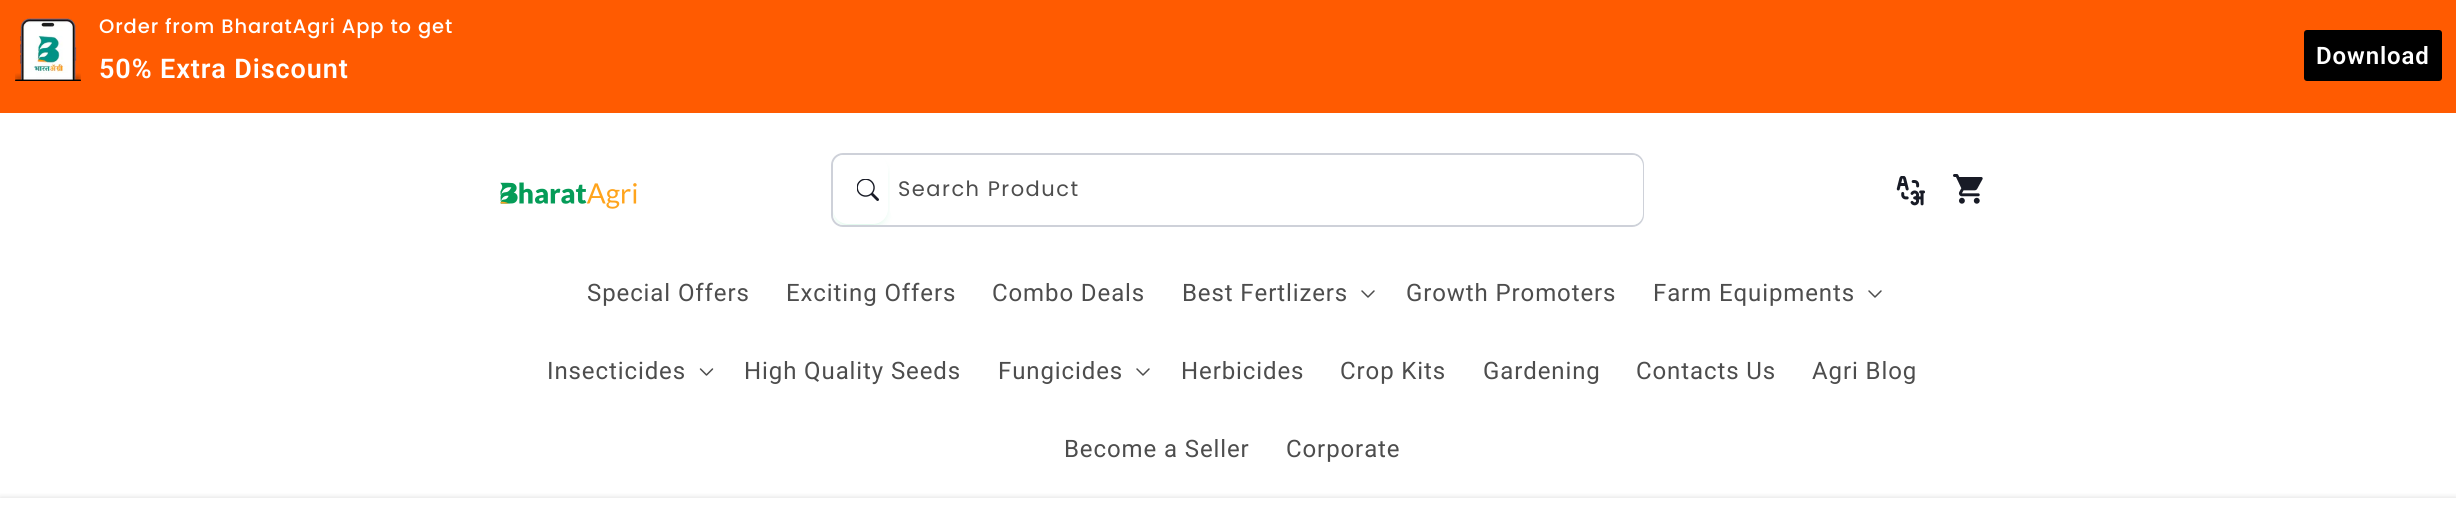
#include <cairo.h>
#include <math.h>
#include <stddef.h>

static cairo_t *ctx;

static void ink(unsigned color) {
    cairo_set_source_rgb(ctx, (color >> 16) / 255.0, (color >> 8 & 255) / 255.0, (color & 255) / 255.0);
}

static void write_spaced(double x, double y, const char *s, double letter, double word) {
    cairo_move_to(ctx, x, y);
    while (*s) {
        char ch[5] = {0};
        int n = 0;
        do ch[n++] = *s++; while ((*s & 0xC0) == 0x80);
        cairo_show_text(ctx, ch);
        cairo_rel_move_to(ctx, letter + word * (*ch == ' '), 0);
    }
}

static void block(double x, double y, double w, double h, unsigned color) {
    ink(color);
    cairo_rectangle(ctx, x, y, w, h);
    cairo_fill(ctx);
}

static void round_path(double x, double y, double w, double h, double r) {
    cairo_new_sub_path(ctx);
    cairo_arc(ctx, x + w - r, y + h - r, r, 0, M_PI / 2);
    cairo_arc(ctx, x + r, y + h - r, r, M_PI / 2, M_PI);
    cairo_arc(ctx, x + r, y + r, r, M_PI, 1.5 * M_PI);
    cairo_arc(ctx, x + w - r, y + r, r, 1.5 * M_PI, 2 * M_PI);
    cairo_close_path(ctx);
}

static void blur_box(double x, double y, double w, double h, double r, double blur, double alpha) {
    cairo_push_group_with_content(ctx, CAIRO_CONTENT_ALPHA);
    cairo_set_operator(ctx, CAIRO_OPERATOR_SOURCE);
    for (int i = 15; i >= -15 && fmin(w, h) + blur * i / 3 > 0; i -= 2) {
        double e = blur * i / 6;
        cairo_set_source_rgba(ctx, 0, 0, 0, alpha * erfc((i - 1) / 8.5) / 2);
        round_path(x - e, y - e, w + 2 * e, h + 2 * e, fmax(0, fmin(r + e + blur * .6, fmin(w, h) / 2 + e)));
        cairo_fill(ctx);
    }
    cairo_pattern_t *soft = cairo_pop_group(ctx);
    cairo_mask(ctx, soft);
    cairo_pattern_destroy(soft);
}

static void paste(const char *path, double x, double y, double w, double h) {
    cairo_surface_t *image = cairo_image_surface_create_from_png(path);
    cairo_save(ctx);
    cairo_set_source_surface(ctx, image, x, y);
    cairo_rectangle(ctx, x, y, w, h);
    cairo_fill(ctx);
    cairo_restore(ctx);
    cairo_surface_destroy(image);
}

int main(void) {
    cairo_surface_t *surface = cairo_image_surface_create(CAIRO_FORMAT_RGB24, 2456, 505);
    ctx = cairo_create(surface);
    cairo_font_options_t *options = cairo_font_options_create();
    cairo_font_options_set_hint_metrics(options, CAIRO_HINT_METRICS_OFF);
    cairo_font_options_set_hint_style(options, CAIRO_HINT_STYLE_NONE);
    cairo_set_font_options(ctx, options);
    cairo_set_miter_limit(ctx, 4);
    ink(0xffffff);
    cairo_paint(ctx);
    block(0, 0, 2456, 113, 0xff5b01);
    paste("pic1.png", 15, 18, 66, 63);
    cairo_select_font_face(ctx, "Poppins Medium", CAIRO_FONT_SLANT_NORMAL, CAIRO_FONT_WEIGHT_NORMAL);
    cairo_set_font_size(ctx, 19.5);
    ink(0xffffff);
    write_spaced(99, 33, "Order from BharatAgri App to get", 0.9, 0);
    cairo_select_font_face(ctx, "Roboto SemiBold", CAIRO_FONT_SLANT_NORMAL, CAIRO_FONT_WEIGHT_NORMAL);
    cairo_set_font_size(ctx, 27);
    write_spaced(99, 78, "50% Extra Discount", 0.9, 0);
    ink(0x000000);
    round_path(2304, 30, 138, 51, 3);
    cairo_fill(ctx);
    cairo_set_font_size(ctx, 24);
    ink(0xffffff);
    write_spaced(2316, 64, "Download", 0.9, 0);
    paste("pic2.png", 500, 182, 137, 27);
    round_path(832, 154, 811, 72, 11);
    ink(0xced1d9);
    cairo_stroke(ctx);
    cairo_save(ctx);
    round_path(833, 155, 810, 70, 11);
    cairo_clip(ctx);
    ink(0xc6f4dc);
    blur_box(837, 164, 801, 61, 0, 4.5, 1);
    cairo_restore(ctx);
    ink(0xffffff);
    round_path(833, 155, 810, 70, 11);
    cairo_fill(ctx);
    cairo_save(ctx);
    round_path(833, 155, 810, 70, 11);
    cairo_clip(ctx);
    ink(0xc6f4dc);
    blur_box(837, 164, 47, 60, 11, 4.5, 1);
    cairo_restore(ctx);
    round_path(833, 155, 55, 69, 15);
    cairo_fill(ctx);
    paste("pic3.png", 857, 179, 22, 22);
    round_path(890, 156, 751, 68, 15);
    cairo_fill(ctx);
    cairo_select_font_face(ctx, "Poppins", CAIRO_FONT_SLANT_NORMAL, CAIRO_FONT_WEIGHT_NORMAL);
    cairo_set_font_size(ctx, 21);
    ink(0x4d4d4d);
    write_spaced(898, 196, "Search Product", 1.5, 0);
    paste("pic4.png", 1896, 176, 29, 30);
    paste("pic5.png", 1953, 174, 30, 30);
    cairo_select_font_face(ctx, "Roboto", CAIRO_FONT_SLANT_NORMAL, CAIRO_FONT_WEIGHT_NORMAL);
    cairo_set_font_size(ctx, 24);
    write_spaced(587, 301, "Special Offers", 0.9, 0);
    write_spaced(786, 301, "Exciting Offers", 0.9, 0);
    write_spaced(992, 301, "Combo Deals", 0.9, 0);
    write_spaced(1182, 301, "Best Fertlizers", 0.9, 0);
    paste("pic6.png", 1361, 290, 14, 8);
    write_spaced(1406, 301, "Growth Promoters", 0.9, 0);
    write_spaced(1653, 301, "Farm Equipments", 0.9, 0);
    paste("pic6.png", 1868, 290, 14, 8);
    write_spaced(547, 379, "Insecticides", 0.9, 0);
    paste("pic7.png", 699, 368, 15, 8);
    write_spaced(744, 379, "High Quality Seeds", 0.9, 0);
    write_spaced(998, 379, "Fungicides", 0.9, 0);
    paste("pic6.png", 1136, 368, 14, 8);
    write_spaced(1181, 379, "Herbicides", 0.9, 0);
    write_spaced(1340, 379, "Crop Kits", 0.9, 0);
    write_spaced(1483, 379, "Gardening", 0.9, 0);
    write_spaced(1636, 379, "Contacts Us", 0.9, 0);
    write_spaced(1812, 379, "Agri Blog", 0.9, 0);
    write_spaced(1064, 457, "Become a Seller", 0.9, 0);
    write_spaced(1286, 457, "Corporate", 0.9, 0);
    ink(0x000000);
    blur_box(0, 498, 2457, 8, 0, 3, 0.15);
    block(0, 498, 2456, 7, 0xffffff);
    cairo_surface_write_to_png(surface, "screenshot.png");
    cairo_font_options_destroy(options);
    cairo_destroy(ctx);
    cairo_surface_destroy(surface);
    return 0;
}
